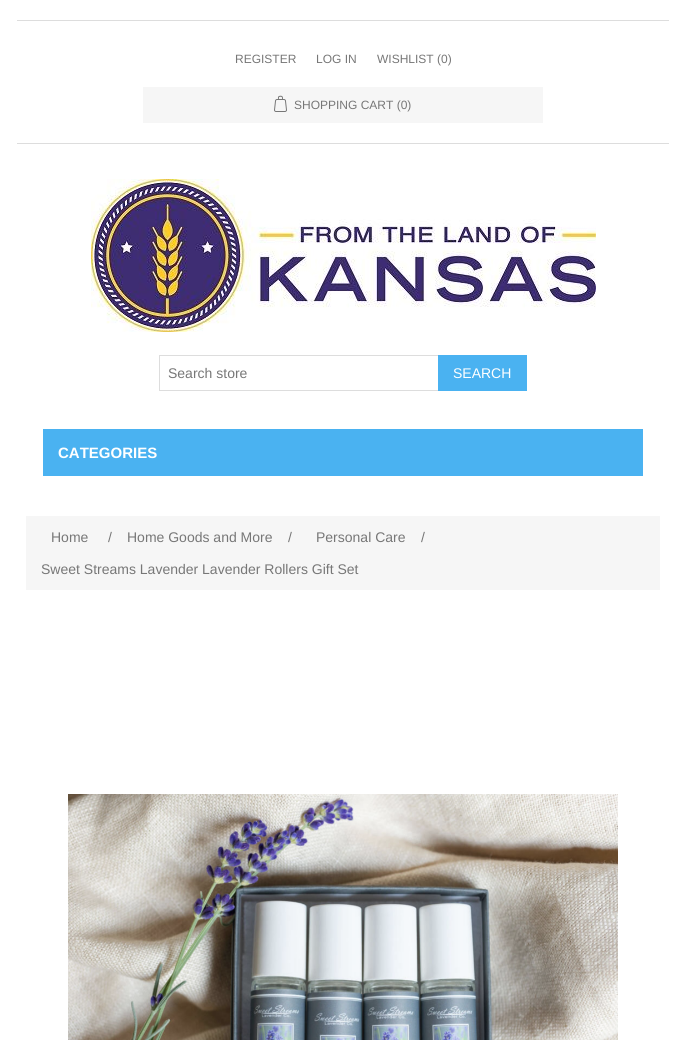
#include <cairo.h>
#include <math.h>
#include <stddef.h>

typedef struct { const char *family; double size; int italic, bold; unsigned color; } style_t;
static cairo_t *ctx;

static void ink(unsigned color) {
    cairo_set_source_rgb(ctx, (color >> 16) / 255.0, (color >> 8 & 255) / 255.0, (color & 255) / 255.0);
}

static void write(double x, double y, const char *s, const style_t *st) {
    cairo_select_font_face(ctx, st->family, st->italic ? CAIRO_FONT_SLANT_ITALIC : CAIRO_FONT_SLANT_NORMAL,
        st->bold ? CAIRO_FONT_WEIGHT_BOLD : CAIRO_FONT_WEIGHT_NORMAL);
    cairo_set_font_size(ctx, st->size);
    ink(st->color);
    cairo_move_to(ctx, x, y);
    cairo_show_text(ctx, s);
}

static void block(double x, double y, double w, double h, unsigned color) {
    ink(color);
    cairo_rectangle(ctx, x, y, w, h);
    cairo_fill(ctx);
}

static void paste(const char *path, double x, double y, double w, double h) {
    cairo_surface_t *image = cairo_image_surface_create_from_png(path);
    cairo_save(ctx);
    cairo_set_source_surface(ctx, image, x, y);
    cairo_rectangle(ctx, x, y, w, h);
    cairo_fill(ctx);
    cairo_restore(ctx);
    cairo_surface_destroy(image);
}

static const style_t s1 = {"Liberation Sans", 12, 0, 0, 0x777777};
static const style_t s2 = {"Liberation Sans", 14, 0, 0, 0x777777};
static const style_t s3 = {"Liberation Sans", 14, 0, 0, 0xffffff};
static const style_t s4 = {"Liberation Sans", 15, 0, 1, 0xffffff};

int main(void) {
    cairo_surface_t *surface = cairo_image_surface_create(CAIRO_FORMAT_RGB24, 686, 1040);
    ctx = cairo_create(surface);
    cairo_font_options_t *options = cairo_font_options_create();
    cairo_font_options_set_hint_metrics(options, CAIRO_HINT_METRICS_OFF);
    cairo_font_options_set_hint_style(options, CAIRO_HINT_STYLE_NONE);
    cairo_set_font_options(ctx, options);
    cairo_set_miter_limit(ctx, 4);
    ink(0xffffff);
    cairo_paint(ctx);
    block(17, 143, 652, 1, 0xdddddd);
    block(17, 20, 652, 1, 0xdddddd);
    write(235, 63, "REGISTER", &s1);
    write(316, 63, "LOG IN", &s1);
    write(377, 63, "WISHLIST (0)", &s1);
    block(143, 87, 400, 36, 0xf6f6f6);
    paste("pic1.png", 274, 95, 13, 17);
    write(294, 109, "SHOPPING CART (0)", &s1);
    paste("pic2.png", 91, 179, 505, 153);
    cairo_rectangle(ctx, 159.5, 355.5, 279, 35);
    ink(0xdddddd);
    cairo_set_line_width(ctx, 1);
    cairo_stroke(ctx);
    write(168, 378, "Search store", &s2);
    block(438, 355, 89, 36, 0x4ab2f1);
    write(453, 378, "SEARCH", &s3);
    block(43, 429, 600, 47, 0x4ab2f1);
    write(58, 458, "CATEGORIES", &s4);
    block(26, 516, 634, 74, 0xf6f6f6);
    write(51, 542, "Home", &s2);
    write(108, 542, "/", &s2);
    write(127, 542, "Home Goods and More", &s2);
    write(288, 542, "/", &s2);
    write(316, 542, "Personal Care", &s2);
    write(421, 542, "/", &s2);
    write(41, 574, "Sweet Streams Lavender Lavender Rollers Gift Set", &s2);
    paste("pic3.png", 68, 794, 550, 246);
    cairo_surface_write_to_png(surface, "screenshot.png");
    cairo_font_options_destroy(options);
    cairo_destroy(ctx);
    cairo_surface_destroy(surface);
    return 0;
}
